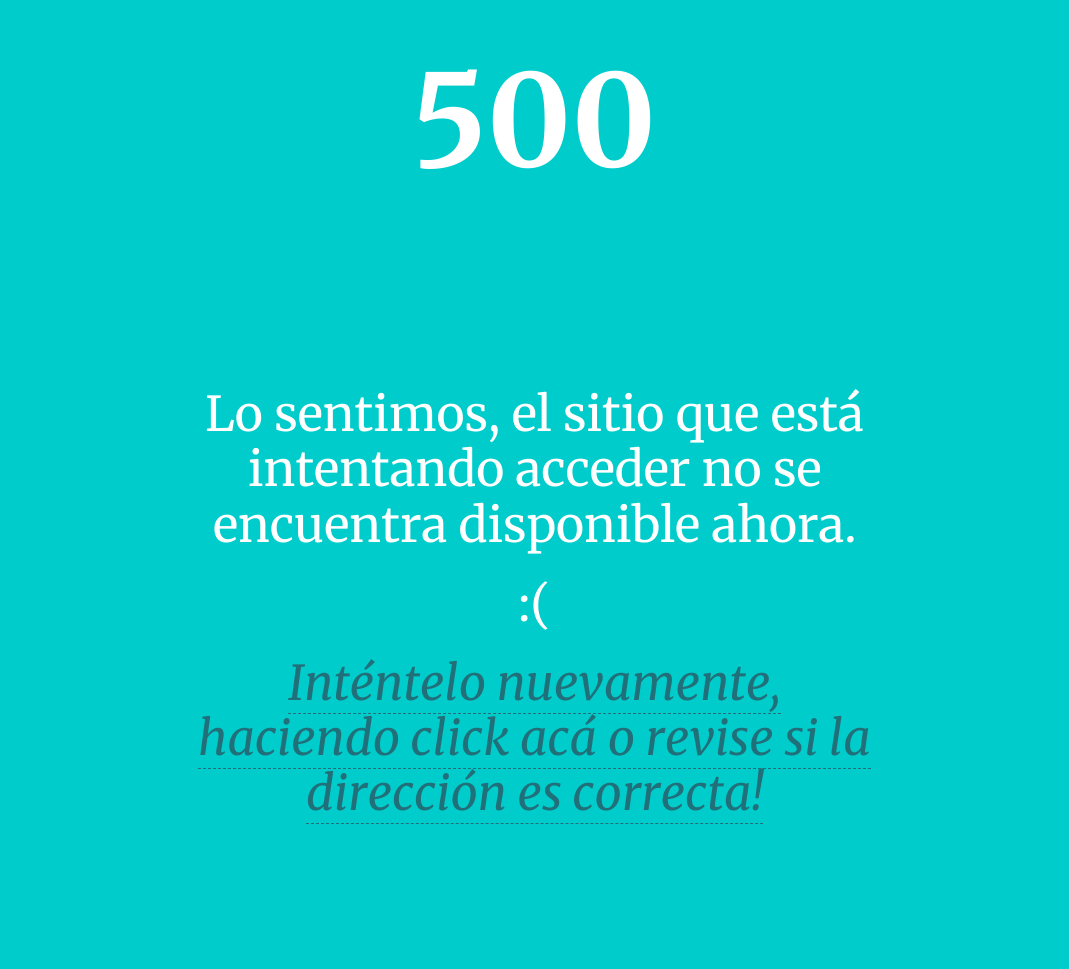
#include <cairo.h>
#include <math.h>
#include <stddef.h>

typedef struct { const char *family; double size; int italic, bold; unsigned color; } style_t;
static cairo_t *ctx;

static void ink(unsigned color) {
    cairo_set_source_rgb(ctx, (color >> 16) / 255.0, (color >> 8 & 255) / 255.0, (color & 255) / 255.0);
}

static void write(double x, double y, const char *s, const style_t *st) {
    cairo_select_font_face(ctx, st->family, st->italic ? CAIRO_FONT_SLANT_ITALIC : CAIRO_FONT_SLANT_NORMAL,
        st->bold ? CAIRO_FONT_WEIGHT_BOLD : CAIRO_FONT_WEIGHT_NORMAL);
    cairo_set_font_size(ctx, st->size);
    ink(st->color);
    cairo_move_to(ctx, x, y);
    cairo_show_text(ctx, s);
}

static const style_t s1 = {"Merriweather", 128, 0, 1, 0xffffff};
static const style_t s2 = {"Merriweather", 48, 0, 0, 0xffffff};
static const style_t s3 = {"Merriweather", 48, 1, 0, 0x216f79};

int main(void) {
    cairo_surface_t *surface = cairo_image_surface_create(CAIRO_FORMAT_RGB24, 1069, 969);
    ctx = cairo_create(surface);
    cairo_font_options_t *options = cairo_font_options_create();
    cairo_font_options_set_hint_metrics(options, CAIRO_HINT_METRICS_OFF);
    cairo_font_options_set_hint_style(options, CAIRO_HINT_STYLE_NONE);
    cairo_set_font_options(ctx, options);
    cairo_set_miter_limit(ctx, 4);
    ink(0x00cccc);
    cairo_paint(ctx);
    write(412, 167, "500", &s1);
    write(205, 431, "Lo sentimos, el sitio que está", &s2);
    write(248, 486, "intentando acceder no se", &s2);
    write(213, 542, "encuentra disponible ahora.", &s2);
    write(518, 621, ":(", &s2);
    write(288, 700, "Inténtelo nuevamente,", &s3);
    write(198, 755, "haciendo click acá o revise si la", &s3);
    cairo_new_path(ctx);
    cairo_move_to(ctx, 288, 713.5);
    cairo_line_to(ctx, 781, 713.5);
    cairo_set_line_width(ctx, 1);
    cairo_set_dash(ctx, (double[]){3, 2}, 2, 0);
    cairo_stroke(ctx);
    cairo_new_path(ctx);
    cairo_move_to(ctx, 198, 768.5);
    cairo_line_to(ctx, 871, 768.5);
    cairo_stroke(ctx);
    write(306, 810, "dirección es correcta!", &s3);
    cairo_new_path(ctx);
    cairo_move_to(ctx, 306, 823.5);
    cairo_line_to(ctx, 763, 823.5);
    cairo_set_dash(ctx, (double[]){3, 1.99}, 2, 0);
    cairo_stroke(ctx);
    cairo_surface_write_to_png(surface, "screenshot.png");
    cairo_font_options_destroy(options);
    cairo_destroy(ctx);
    cairo_surface_destroy(surface);
    return 0;
}
